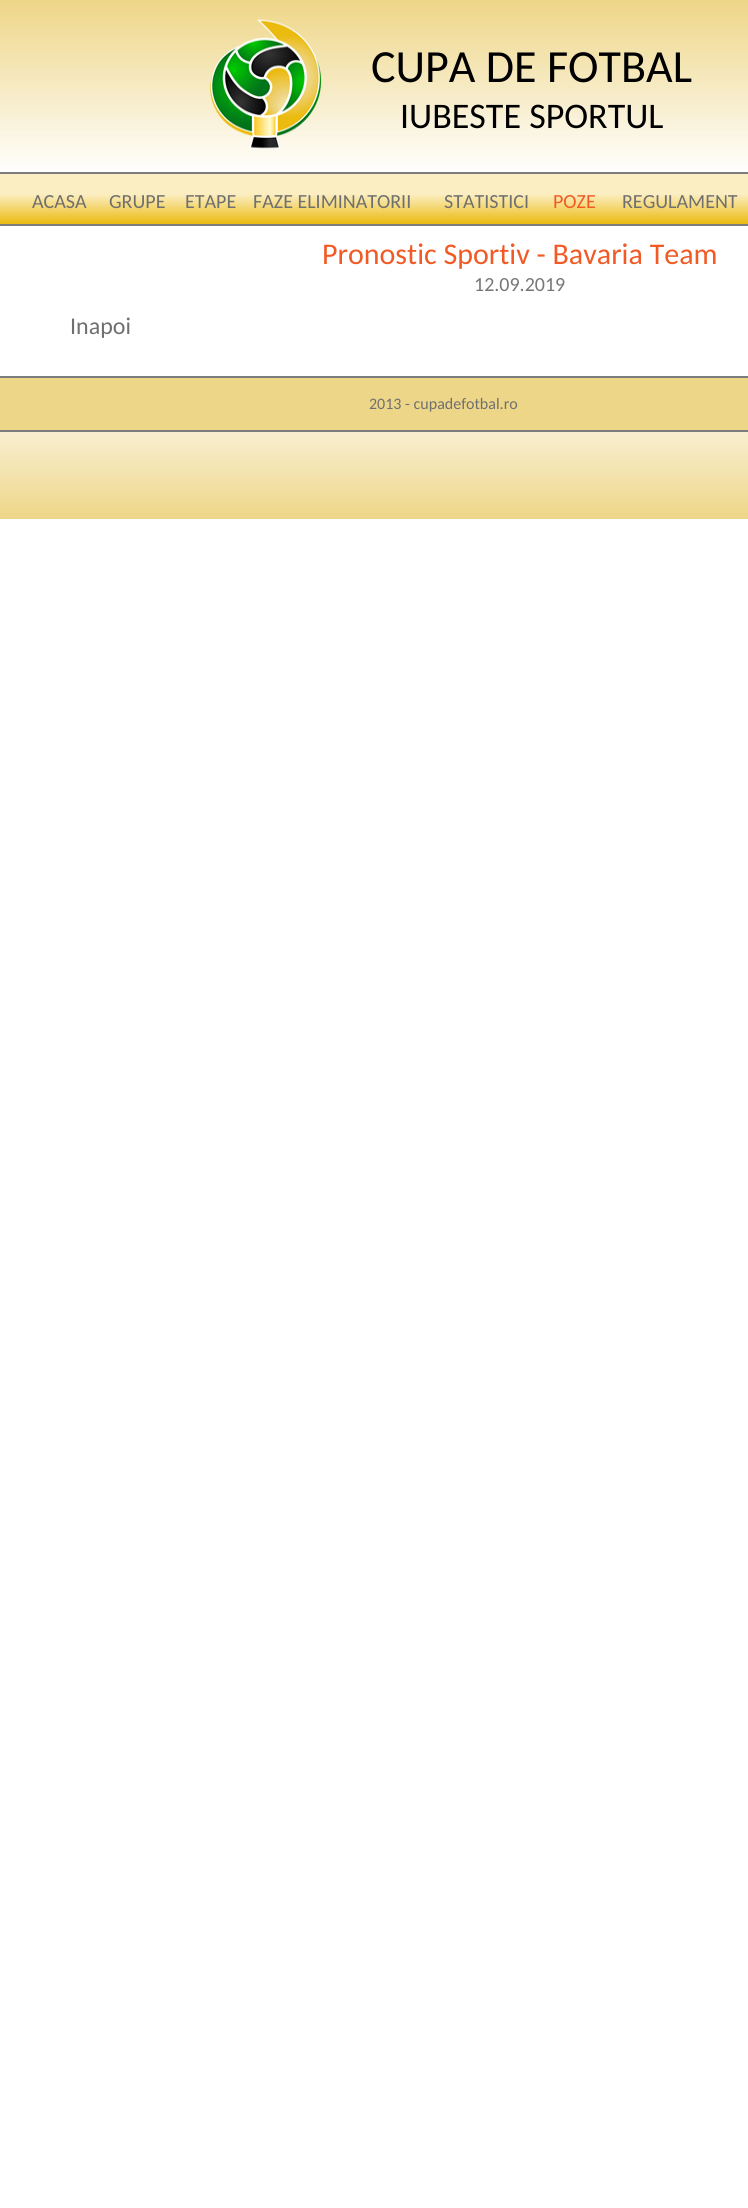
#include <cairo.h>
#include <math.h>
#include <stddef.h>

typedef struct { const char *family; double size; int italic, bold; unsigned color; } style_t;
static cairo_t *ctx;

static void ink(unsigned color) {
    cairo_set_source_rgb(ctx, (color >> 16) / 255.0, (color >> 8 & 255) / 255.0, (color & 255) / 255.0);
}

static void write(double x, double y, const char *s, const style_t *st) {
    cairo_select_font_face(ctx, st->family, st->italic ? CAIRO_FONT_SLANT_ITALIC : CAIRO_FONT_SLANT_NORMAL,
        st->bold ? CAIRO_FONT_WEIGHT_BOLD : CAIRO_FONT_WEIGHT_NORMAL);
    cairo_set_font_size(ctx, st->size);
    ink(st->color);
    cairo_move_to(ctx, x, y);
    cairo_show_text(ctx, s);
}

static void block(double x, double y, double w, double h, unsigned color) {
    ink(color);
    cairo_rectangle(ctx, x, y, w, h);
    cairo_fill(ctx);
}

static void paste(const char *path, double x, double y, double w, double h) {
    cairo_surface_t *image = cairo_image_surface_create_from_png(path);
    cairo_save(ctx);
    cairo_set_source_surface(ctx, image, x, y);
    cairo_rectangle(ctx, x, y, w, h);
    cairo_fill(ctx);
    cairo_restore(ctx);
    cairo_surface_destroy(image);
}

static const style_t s1 = {"Carlito", 46, 0, 0, 0x000000};
static const style_t s2 = {"Carlito", 36, 0, 0, 0x000000};
static const style_t s3 = {"Carlito", 20, 0, 0, 0x6f6f6f};
static const style_t s4 = {"Carlito", 20, 0, 0, 0xf15a24};
static const style_t s5 = {"Carlito", 30, 0, 0, 0xf15a24};
static const style_t s6 = {"Carlito", 20, 0, 0, 0x777777};
static const style_t s7 = {"Carlito", 24, 0, 0, 0x6f6f6f};
static const style_t s8 = {"Carlito", 16, 0, 0, 0x6f6f6f};

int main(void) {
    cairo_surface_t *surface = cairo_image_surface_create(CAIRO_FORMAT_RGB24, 748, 2208);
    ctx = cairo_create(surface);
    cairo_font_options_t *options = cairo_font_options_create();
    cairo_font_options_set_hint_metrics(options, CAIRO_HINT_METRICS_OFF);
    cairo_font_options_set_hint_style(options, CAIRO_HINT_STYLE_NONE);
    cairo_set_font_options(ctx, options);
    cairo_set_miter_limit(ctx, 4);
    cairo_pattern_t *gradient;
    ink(0xffffff);
    cairo_paint(ctx);
    gradient = cairo_pattern_create_linear(480, 0, 480, 175);
    cairo_pattern_add_color_stop_rgba(gradient, 0, 0.933, 0.839, 0.533, 1);
    cairo_pattern_add_color_stop_rgba(gradient, 1, 1, 1, 1, 1);
    cairo_set_source(ctx, gradient);
    cairo_pattern_destroy(gradient);
    cairo_rectangle(ctx, 0, 0, 748, 171);
    cairo_fill(ctx);
    paste("pic1.png", 210, 19, 112, 130);
    write(371, 82, "CUPA DE FOTBAL", &s1);
    write(400, 128, "IUBESTE SPORTUL", &s2);
    gradient = cairo_pattern_create_linear(480, 174, 480, 224);
    cairo_pattern_add_color_stop_rgba(gradient, 0.4, 0.984, 0.933, 0.761, 1);
    cairo_pattern_add_color_stop_rgba(gradient, 1, 0.922, 0.733, 0.063, 1);
    cairo_set_source(ctx, gradient);
    cairo_pattern_destroy(gradient);
    cairo_rectangle(ctx, 0, 174, 748, 50);
    cairo_fill(ctx);
    block(0, 172, 748, 2, 0x7c7c7c);
    block(0, 224, 748, 2, 0x7c7c7c);
    write(32, 208, "ACASA", &s3);
    write(109, 208, "GRUPE", &s3);
    write(185, 208, "ETAPE", &s3);
    write(253, 208, "FAZE ELIMINATORII", &s3);
    write(444, 208, "STATISTICI", &s3);
    write(553, 208, "POZE", &s4);
    write(622, 208, "REGULAMENT", &s3);
    write(322, 264, "Pronostic Sportiv - Bavaria Team", &s5);
    write(474, 291, "12.09.2019", &s6);
    write(70, 334, "Inapoi", &s7);
    block(0, 378, 748, 52, 0xeed688);
    block(0, 376, 748, 2, 0x7c7c7c);
    block(0, 430, 748, 2, 0x7c7c7c);
    write(369, 409, "2013 - cupadefotbal.ro", &s8);
    gradient = cairo_pattern_create_linear(480, 376, 480, 519);
    cairo_pattern_add_color_stop_rgba(gradient, 0, 1, 1, 1, 1);
    cairo_pattern_add_color_stop_rgba(gradient, 1, 0.933, 0.839, 0.533, 1);
    cairo_set_source(ctx, gradient);
    cairo_pattern_destroy(gradient);
    cairo_rectangle(ctx, 0, 432, 748, 87);
    cairo_fill(ctx);
    cairo_surface_write_to_png(surface, "screenshot.png");
    cairo_font_options_destroy(options);
    cairo_destroy(ctx);
    cairo_surface_destroy(surface);
    return 0;
}
